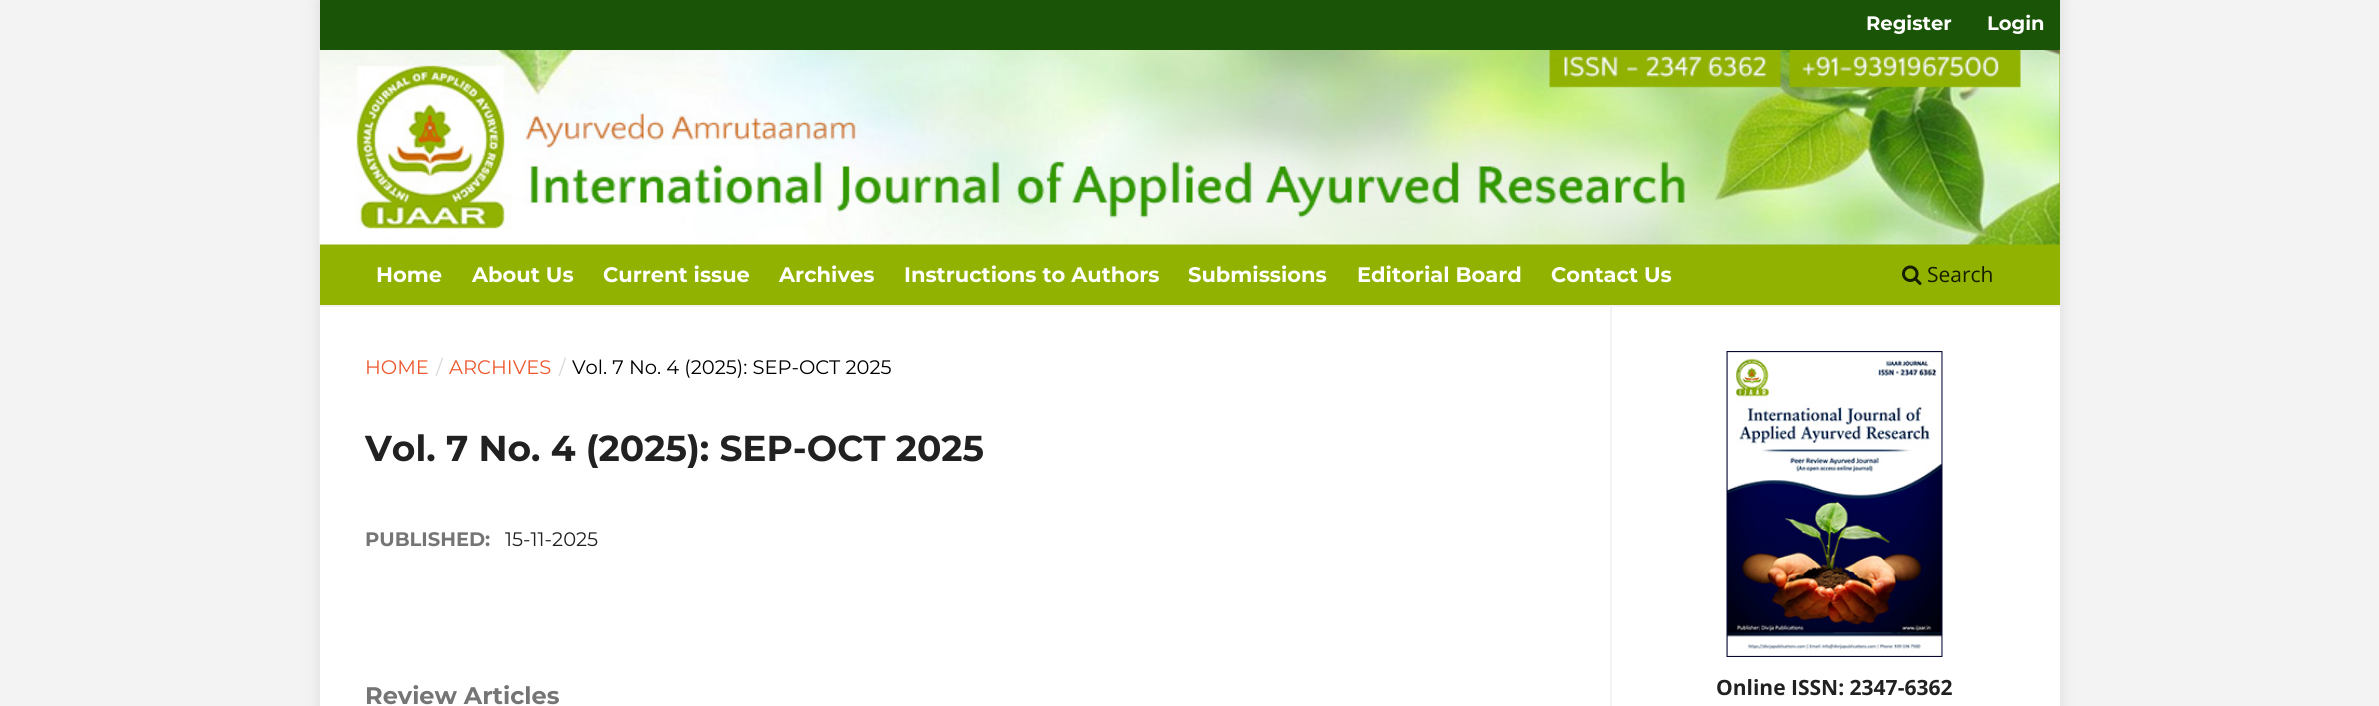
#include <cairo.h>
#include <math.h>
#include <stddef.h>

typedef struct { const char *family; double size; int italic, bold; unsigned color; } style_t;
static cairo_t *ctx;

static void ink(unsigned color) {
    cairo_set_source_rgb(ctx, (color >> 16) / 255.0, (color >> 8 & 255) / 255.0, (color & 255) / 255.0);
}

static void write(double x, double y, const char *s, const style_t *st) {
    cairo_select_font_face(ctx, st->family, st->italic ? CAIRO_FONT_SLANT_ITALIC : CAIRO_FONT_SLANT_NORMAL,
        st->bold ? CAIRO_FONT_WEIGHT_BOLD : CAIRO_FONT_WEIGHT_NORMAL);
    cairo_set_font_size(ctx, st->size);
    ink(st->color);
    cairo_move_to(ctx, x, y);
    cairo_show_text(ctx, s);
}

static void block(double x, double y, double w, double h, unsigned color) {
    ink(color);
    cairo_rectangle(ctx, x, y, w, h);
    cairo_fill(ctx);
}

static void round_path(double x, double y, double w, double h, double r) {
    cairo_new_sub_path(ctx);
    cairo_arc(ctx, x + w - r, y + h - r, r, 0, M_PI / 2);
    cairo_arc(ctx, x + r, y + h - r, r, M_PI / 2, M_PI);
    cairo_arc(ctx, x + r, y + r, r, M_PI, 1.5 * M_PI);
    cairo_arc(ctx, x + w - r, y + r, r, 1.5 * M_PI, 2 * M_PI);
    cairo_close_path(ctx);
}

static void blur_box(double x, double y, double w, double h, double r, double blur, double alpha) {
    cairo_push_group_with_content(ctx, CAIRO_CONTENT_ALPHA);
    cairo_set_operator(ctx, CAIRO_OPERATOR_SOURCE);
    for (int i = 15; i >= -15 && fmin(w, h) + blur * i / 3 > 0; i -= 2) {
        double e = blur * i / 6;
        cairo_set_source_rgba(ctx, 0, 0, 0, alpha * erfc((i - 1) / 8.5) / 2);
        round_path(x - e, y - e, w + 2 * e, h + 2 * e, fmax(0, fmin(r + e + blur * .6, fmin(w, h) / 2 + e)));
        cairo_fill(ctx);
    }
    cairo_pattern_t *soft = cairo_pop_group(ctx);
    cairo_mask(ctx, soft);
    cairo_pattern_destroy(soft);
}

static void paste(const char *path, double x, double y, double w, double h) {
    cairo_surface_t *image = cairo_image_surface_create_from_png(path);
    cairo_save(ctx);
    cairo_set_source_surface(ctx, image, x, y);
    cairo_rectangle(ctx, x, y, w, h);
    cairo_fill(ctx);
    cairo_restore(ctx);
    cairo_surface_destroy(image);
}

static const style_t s1 = {"Montserrat", 19.5, 0, 1, 0xffffff};
static const style_t s2 = {"Montserrat", 21, 0, 1, 0xffffff};
static const style_t s3 = {"Open Sans", 21, 0, 0, 0x171c00};
static const style_t s4 = {"Montserrat", 19.5, 0, 0, 0xec592e};
static const style_t s5 = {"Montserrat", 19.5, 0, 0, 0xd6d6d6};
static const style_t s6 = {"Montserrat", 19.5, 0, 0, 0x000000};
static const style_t s7 = {"Montserrat", 36, 0, 1, 0x212121};
static const style_t s8 = {"Montserrat", 19.5, 0, 1, 0x757575};
static const style_t s9 = {"Montserrat", 19.5, 0, 0, 0x212121};
static const style_t s10 = {"Montserrat", 24, 0, 1, 0x757575};
static const style_t s11 = {"Open Sans", 21, 0, 1, 0x212121};

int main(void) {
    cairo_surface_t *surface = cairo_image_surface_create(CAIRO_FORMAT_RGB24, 2379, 706);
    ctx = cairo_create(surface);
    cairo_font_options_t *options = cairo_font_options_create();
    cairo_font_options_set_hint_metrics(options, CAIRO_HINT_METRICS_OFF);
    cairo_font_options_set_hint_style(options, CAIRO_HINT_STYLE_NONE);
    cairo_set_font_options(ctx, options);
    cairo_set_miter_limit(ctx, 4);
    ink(0xf3f3f3);
    cairo_paint(ctx);
    ink(0x000000);
    blur_box(320, 0, 1740, 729, 0, 7.5, 0.1);
    block(320, 307, 1740, 399, 0xffffff);
    block(320, 50, 1740, 255, 0x91b200);
    block(320, 305, 1740, 2, 0xf3f3f3);
    paste("pic2.png", 319, 49, 1741, 196);
    block(320, 0, 1740, 50, 0x1a5407);
    write(1866, 30, "Register", &s1);
    write(1987, 30, "Login", &s1);
    write(376, 282, "Home", &s2);
    write(472, 282, "About Us", &s2);
    write(603, 282, "Current issue", &s2);
    write(779, 282, "Archives", &s2);
    write(904, 282, "Instructions to Authors", &s2);
    write(1188, 282, "Submissions", &s2);
    write(1357, 282, "Editorial Board", &s2);
    write(1551, 282, "Contact Us", &s2);
    paste("pic1.png", 1902, 265, 20, 20);
    write(1927, 282, "Search", &s3);
    write(365, 374, "HOME", &s4);
    write(436, 374, "/", &s5);
    write(449, 374, "ARCHIVES", &s4);
    write(559, 374, "/", &s5);
    write(572, 374, "Vol. 7 No. 4 (2025): SEP-OCT 2025", &s6);
    write(365, 461, "Vol. 7 No. 4 (2025): SEP-OCT 2025", &s7);
    write(365, 546, "PUBLISHED:", &s8);
    write(505, 546, "15-11-2025", &s9);
    write(365, 704, "Review Articles", &s10);
    block(1610, 306, 2, 400, 0xf3f3f3);
    paste("pic3.png", 1726, 351, 217, 306);
    write(1716, 695, "Online ISSN: 2347-6362", &s11);
    cairo_surface_write_to_png(surface, "screenshot.png");
    cairo_font_options_destroy(options);
    cairo_destroy(ctx);
    cairo_surface_destroy(surface);
    return 0;
}
